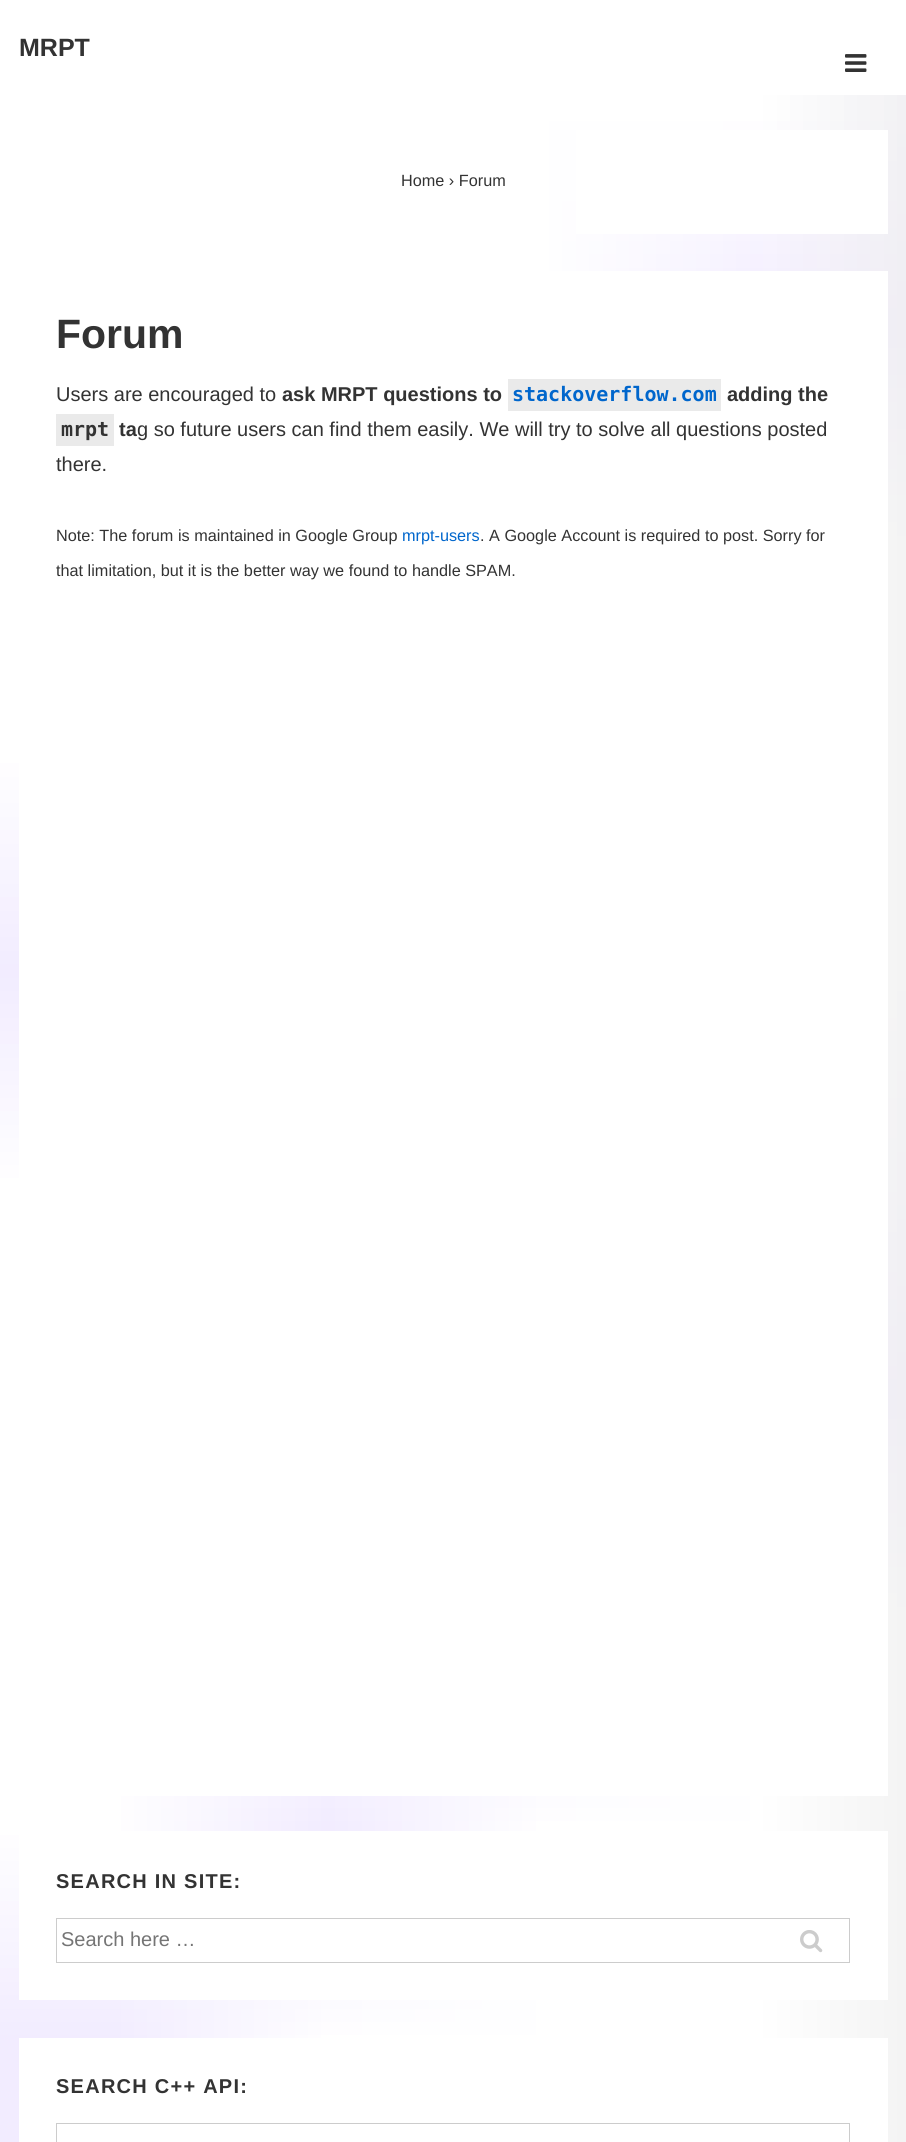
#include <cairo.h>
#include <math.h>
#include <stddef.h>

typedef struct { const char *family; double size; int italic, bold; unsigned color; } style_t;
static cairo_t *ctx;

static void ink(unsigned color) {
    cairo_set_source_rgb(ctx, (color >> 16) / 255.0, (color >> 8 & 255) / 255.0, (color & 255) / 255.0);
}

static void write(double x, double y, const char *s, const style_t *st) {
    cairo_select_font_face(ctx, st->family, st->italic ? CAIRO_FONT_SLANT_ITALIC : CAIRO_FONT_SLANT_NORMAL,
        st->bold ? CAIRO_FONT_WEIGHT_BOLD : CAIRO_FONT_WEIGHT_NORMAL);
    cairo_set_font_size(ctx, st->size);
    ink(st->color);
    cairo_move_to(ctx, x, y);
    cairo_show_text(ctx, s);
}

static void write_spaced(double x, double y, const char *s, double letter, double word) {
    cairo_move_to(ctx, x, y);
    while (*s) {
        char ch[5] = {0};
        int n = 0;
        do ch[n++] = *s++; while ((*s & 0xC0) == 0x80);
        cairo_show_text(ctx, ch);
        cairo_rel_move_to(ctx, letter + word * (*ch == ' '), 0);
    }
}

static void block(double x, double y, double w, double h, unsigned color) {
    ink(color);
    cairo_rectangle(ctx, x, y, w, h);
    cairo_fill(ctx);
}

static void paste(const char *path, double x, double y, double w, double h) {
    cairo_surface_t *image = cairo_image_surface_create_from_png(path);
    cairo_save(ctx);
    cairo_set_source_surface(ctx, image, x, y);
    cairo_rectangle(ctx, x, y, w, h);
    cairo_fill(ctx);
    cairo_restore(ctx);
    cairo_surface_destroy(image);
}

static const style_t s1 = {"Liberation Sans", 25, 0, 1, 0x333333};
static const style_t s2 = {"Liberation Sans", 16.25, 0, 0, 0x333333};
static const style_t s3 = {"Liberation Sans", 41, 0, 1, 0x333333};
static const style_t s4 = {"Liberation Sans", 20, 0, 0, 0x333333};
static const style_t s5 = {"Liberation Sans", 20, 0, 1, 0x333333};
static const style_t s6 = {"DejaVu Sans Mono", 20, 0, 1, 0x0066cc};
static const style_t s7 = {"DejaVu Sans Mono", 20, 0, 1, 0x333333};
static const style_t s8 = {"Liberation Sans", 16.25, 0, 0, 0x0066cc};
static const style_t s9 = {"Liberation Sans", 20, 0, 0, 0x757575};

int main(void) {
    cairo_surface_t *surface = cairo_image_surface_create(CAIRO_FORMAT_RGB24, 906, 2142);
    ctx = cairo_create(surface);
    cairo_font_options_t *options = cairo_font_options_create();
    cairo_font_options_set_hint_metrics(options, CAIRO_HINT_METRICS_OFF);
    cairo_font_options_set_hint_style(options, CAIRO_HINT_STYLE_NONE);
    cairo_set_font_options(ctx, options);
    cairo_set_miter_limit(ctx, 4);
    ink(0xeaeaea);
    cairo_paint(ctx);
    paste("pic1.png", 0, 95, 906, 2047);
    block(0, 0, 906, 95, 0xffffff);
    write(19, 56, "MRPT", &s1);
    paste("pic2.png", 845, 54, 22, 18);
    block(576, 130, 312, 104, 0xffffff);
    write(401, 186, "Home › Forum", &s2);
    block(19, 271, 869, 1525, 0xffffff);
    write(56, 348, "Forum", &s3);
    write(56, 401, "Users are encouraged to", &s4);
    write(282, 401, "ask MRPT questions to", &s5);
    block(508, 379, 213, 32, 0xeaeaea);
    write(512, 401, "stackoverflow.com", &s6);
    write(727, 401, "adding the", &s5);
    block(56, 414, 58, 32, 0xeaeaea);
    write(61, 436, "mrpt", &s7);
    write(119, 436, "ta", &s5);
    write(137, 436, "g so future users can find them easily. We will try to solve all questions posted", &s4);
    write(56, 471, "there.", &s4);
    write(56, 541, "Note: The forum is maintained in Google Group", &s2);
    write(402, 541, "mrpt-users", &s8);
    write(480, 541, ". A Google Account is required to post. Sorry for", &s2);
    write(56, 576, "that limitation, but it is the better way we found to handle SPAM.", &s2);
    block(19, 1831, 869, 169, 0xffffff);
    cairo_select_font_face(ctx, "Liberation Sans", CAIRO_FONT_SLANT_NORMAL, CAIRO_FONT_WEIGHT_BOLD);
    cairo_set_font_size(ctx, 20);
    ink(0x333333);
    write_spaced(56, 1888, "SEARCH IN SITE:", 1.25, 0);
    cairo_rectangle(ctx, 56.5, 1918.5, 793, 44);
    ink(0xcccccc);
    cairo_set_line_width(ctx, 1);
    cairo_stroke(ctx);
    write(61, 1946, "Search here …", &s9);
    paste("pic3.png", 800, 1930, 23, 23);
    block(19, 2038, 869, 104, 0xffffff);
    cairo_select_font_face(ctx, "Liberation Sans", CAIRO_FONT_SLANT_NORMAL, CAIRO_FONT_WEIGHT_BOLD);
    ink(0x333333);
    write_spaced(56, 2093, "SEARCH C++ API:", 1.25, 0);
    cairo_rectangle(ctx, 56.5, 2123.5, 793, 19);
    ink(0xcccccc);
    cairo_stroke(ctx);
    cairo_surface_write_to_png(surface, "screenshot.png");
    cairo_font_options_destroy(options);
    cairo_destroy(ctx);
    cairo_surface_destroy(surface);
    return 0;
}
